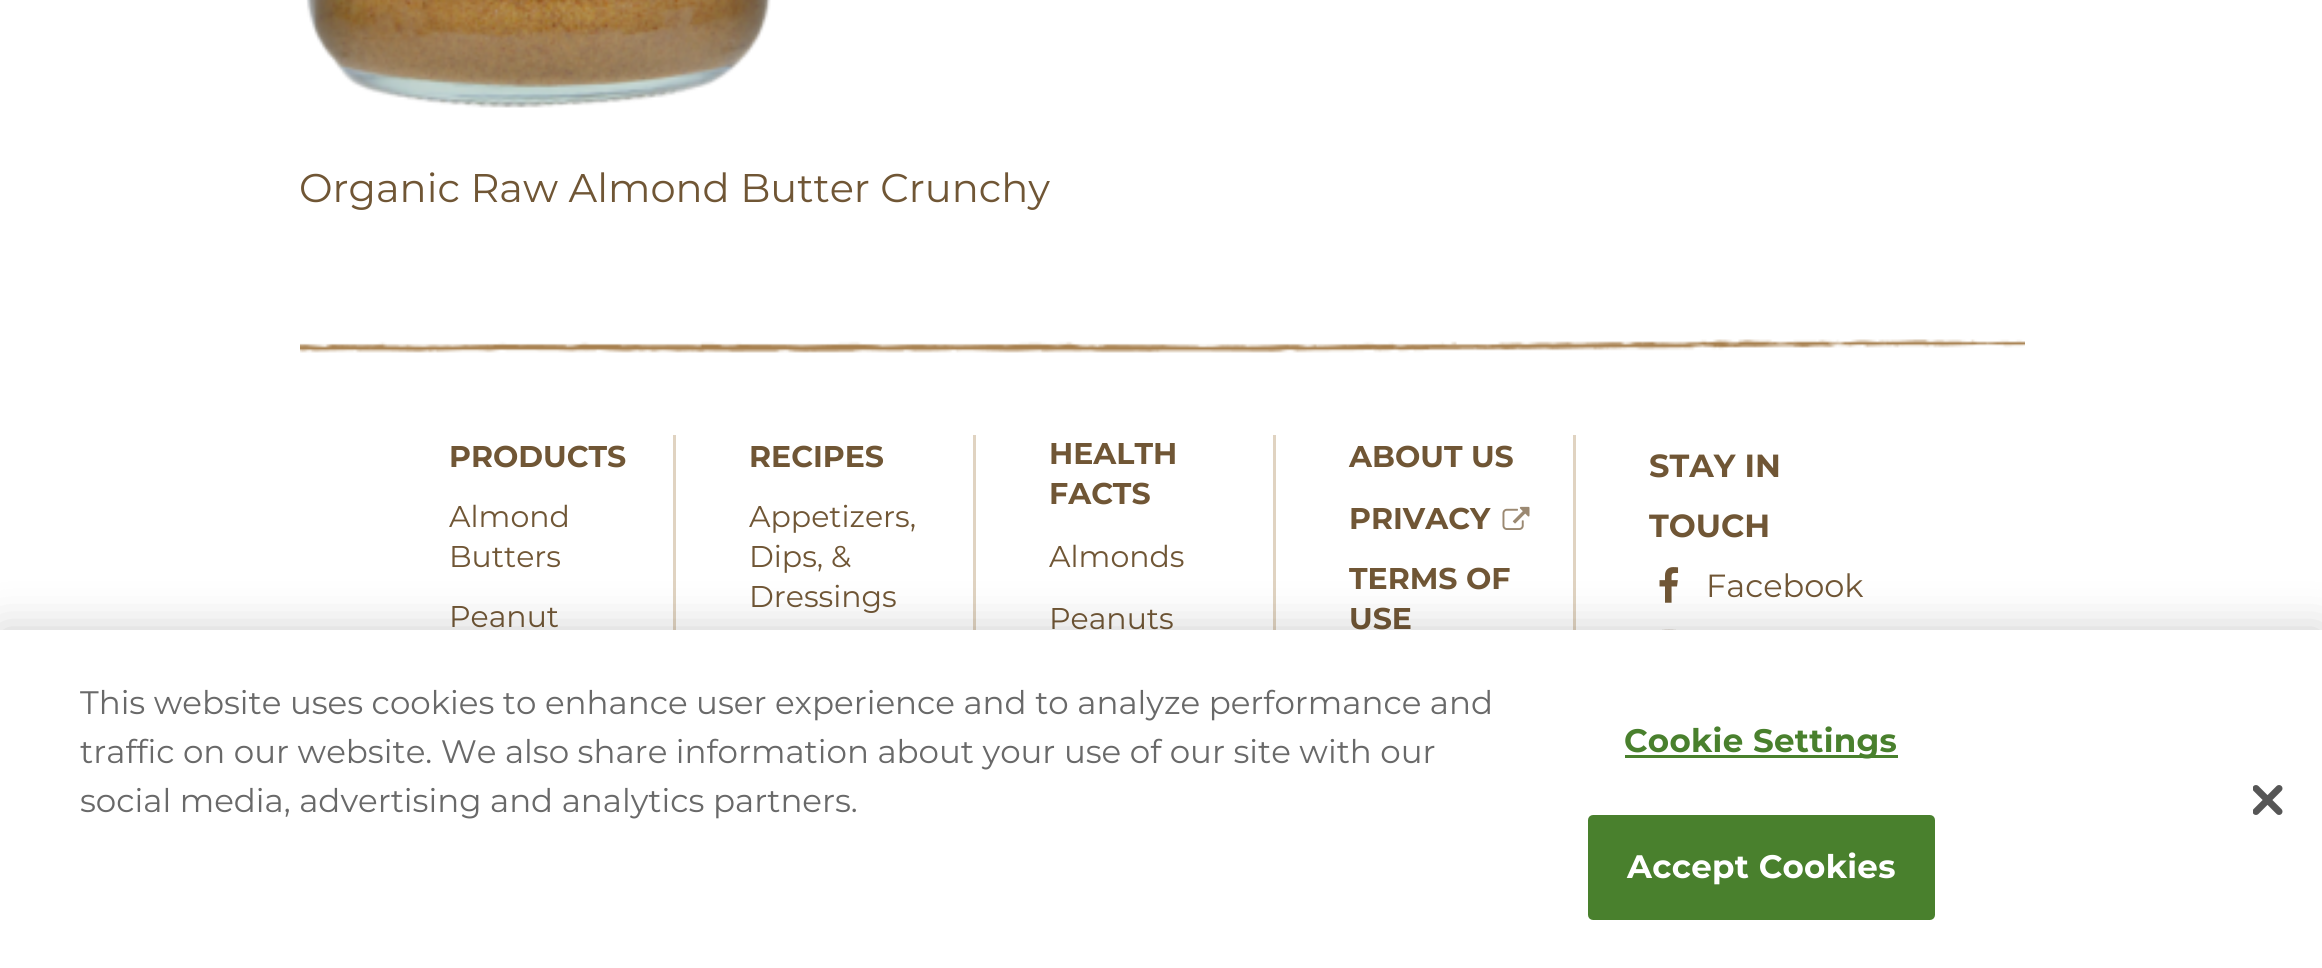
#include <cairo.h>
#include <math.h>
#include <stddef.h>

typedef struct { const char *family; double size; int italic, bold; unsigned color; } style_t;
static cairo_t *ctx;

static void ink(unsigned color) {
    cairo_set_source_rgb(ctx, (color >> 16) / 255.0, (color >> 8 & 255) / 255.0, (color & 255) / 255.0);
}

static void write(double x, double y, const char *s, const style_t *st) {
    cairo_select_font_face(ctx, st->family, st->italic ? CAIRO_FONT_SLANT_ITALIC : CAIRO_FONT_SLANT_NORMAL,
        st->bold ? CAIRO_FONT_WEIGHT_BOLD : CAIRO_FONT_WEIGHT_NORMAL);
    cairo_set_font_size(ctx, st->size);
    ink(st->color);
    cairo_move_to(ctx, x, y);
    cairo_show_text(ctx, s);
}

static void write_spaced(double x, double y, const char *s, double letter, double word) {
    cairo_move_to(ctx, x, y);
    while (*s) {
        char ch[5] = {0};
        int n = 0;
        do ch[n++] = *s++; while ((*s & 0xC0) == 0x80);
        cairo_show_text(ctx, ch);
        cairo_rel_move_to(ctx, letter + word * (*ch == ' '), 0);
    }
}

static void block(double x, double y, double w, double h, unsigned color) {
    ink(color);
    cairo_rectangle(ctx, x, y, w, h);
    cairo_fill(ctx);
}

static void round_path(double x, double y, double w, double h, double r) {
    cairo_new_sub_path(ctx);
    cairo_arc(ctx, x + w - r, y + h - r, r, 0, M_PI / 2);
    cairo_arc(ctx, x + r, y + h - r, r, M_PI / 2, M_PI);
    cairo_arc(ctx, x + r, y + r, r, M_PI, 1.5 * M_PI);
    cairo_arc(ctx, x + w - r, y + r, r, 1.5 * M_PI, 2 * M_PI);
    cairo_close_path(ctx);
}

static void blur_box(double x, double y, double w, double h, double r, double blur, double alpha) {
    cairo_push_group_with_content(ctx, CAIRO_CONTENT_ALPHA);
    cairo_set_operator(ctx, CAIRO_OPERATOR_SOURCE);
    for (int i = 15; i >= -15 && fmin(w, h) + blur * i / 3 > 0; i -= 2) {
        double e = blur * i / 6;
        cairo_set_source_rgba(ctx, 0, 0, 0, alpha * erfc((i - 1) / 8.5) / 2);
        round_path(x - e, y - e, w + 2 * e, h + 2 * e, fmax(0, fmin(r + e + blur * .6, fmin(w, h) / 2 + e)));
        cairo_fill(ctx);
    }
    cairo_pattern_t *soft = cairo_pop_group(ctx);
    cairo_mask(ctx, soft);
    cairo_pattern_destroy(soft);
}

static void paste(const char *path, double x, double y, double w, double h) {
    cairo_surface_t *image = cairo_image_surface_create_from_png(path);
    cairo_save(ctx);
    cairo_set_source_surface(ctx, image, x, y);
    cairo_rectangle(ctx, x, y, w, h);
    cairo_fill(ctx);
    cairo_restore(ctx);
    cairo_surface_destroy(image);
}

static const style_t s1 = {"Montserrat", 40, 0, 0, 0x705635};
static const style_t s2 = {"Montserrat", 30, 0, 1, 0x705635};
static const style_t s3 = {"Montserrat", 30, 0, 0, 0x705635};
static const style_t s4 = {"Montserrat", 32, 0, 1, 0x705635};
static const style_t s5 = {"Montserrat", 32, 0, 0, 0x705635};
static const style_t s6 = {"Montserrat", 32.5, 0, 0, 0x696969};

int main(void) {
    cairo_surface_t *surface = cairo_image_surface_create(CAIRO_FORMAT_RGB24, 2322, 968);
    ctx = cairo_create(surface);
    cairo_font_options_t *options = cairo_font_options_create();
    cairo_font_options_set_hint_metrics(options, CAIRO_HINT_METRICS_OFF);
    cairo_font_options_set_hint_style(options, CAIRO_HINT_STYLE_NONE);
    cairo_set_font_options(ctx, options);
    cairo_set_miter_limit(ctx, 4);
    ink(0xffffff);
    cairo_paint(ctx);
    paste("pic1.png", 306, 0, 465, 108);
    write(299, 202, "Organic Raw Almond Butter Crunchy", &s1);
    paste("pic2.png", 300, 339, 1725, 14);
    block(673, 435, 3, 195, 0xe0d3c1);
    write(449, 467, "PRODUCTS", &s2);
    write(449, 527, "Almond", &s3);
    write(449, 567, "Butters", &s3);
    write(449, 627, "Peanut", &s3);
    block(973, 435, 3, 195, 0xe0d3c1);
    write(749, 467, "RECIPES", &s2);
    write(749, 527, "Appetizers,", &s3);
    write(749, 567, "Dips, &", &s3);
    write(749, 607, "Dressings", &s3);
    block(1273, 435, 3, 195, 0xe0d3c1);
    write(1049, 464, "HEALTH", &s2);
    write(1049, 504, "FACTS", &s2);
    write(1049, 567, "Almonds", &s3);
    write(1049, 629, "Peanuts", &s3);
    block(1573, 435, 3, 195, 0xe0d3c1);
    write(1349, 467, "ABOUT US", &s2);
    write(1349, 529, "PRIVACY", &s2);
    paste("pic3.png", 1502, 506, 28, 24);
    write(1349, 589, "TERMS OF", &s2);
    write(1349, 629, "USE", &s2);
    write(1649, 477, "STAY IN", &s4);
    write(1649, 537, "TOUCH", &s4);
    paste("pic4.png", 1659, 567, 20, 36);
    write(1706, 597, "Facebook", &s5);
    paste("pic5.png", 1662, 629, 14, 1);
    ink(0x000000);
    blur_box(0, 630, 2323, 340, 0, 22.5, 0.2);
    block(0, 630, 2322, 338, 0xffffff);
    write(80, 714, "This website uses cookies to enhance user experience and to analyze performance and", &s6);
    write(80, 763, "traffic on our website. We also share information about your use of our site with our", &s6);
    write(80, 812, "social media, advertising and analytics partners.", &s6);
    block(1625, 755, 273, 3, 0x49802d);
    cairo_select_font_face(ctx, "Montserrat", CAIRO_FONT_SLANT_NORMAL, CAIRO_FONT_WEIGHT_BOLD);
    write_spaced(1624, 752, "Cookie Settings", 0.3, 0);
    round_path(1589.5, 816.5, 344, 102, 3.5);
    cairo_fill_preserve(ctx);
    cairo_set_line_width(ctx, 3);
    cairo_stroke(ctx);
    ink(0xffffff);
    write_spaced(1627, 878, "Accept Cookies", 0.3, 0);
    paste("pic6.png", 2253, 785, 30, 30);
    cairo_surface_write_to_png(surface, "screenshot.png");
    cairo_font_options_destroy(options);
    cairo_destroy(ctx);
    cairo_surface_destroy(surface);
    return 0;
}
